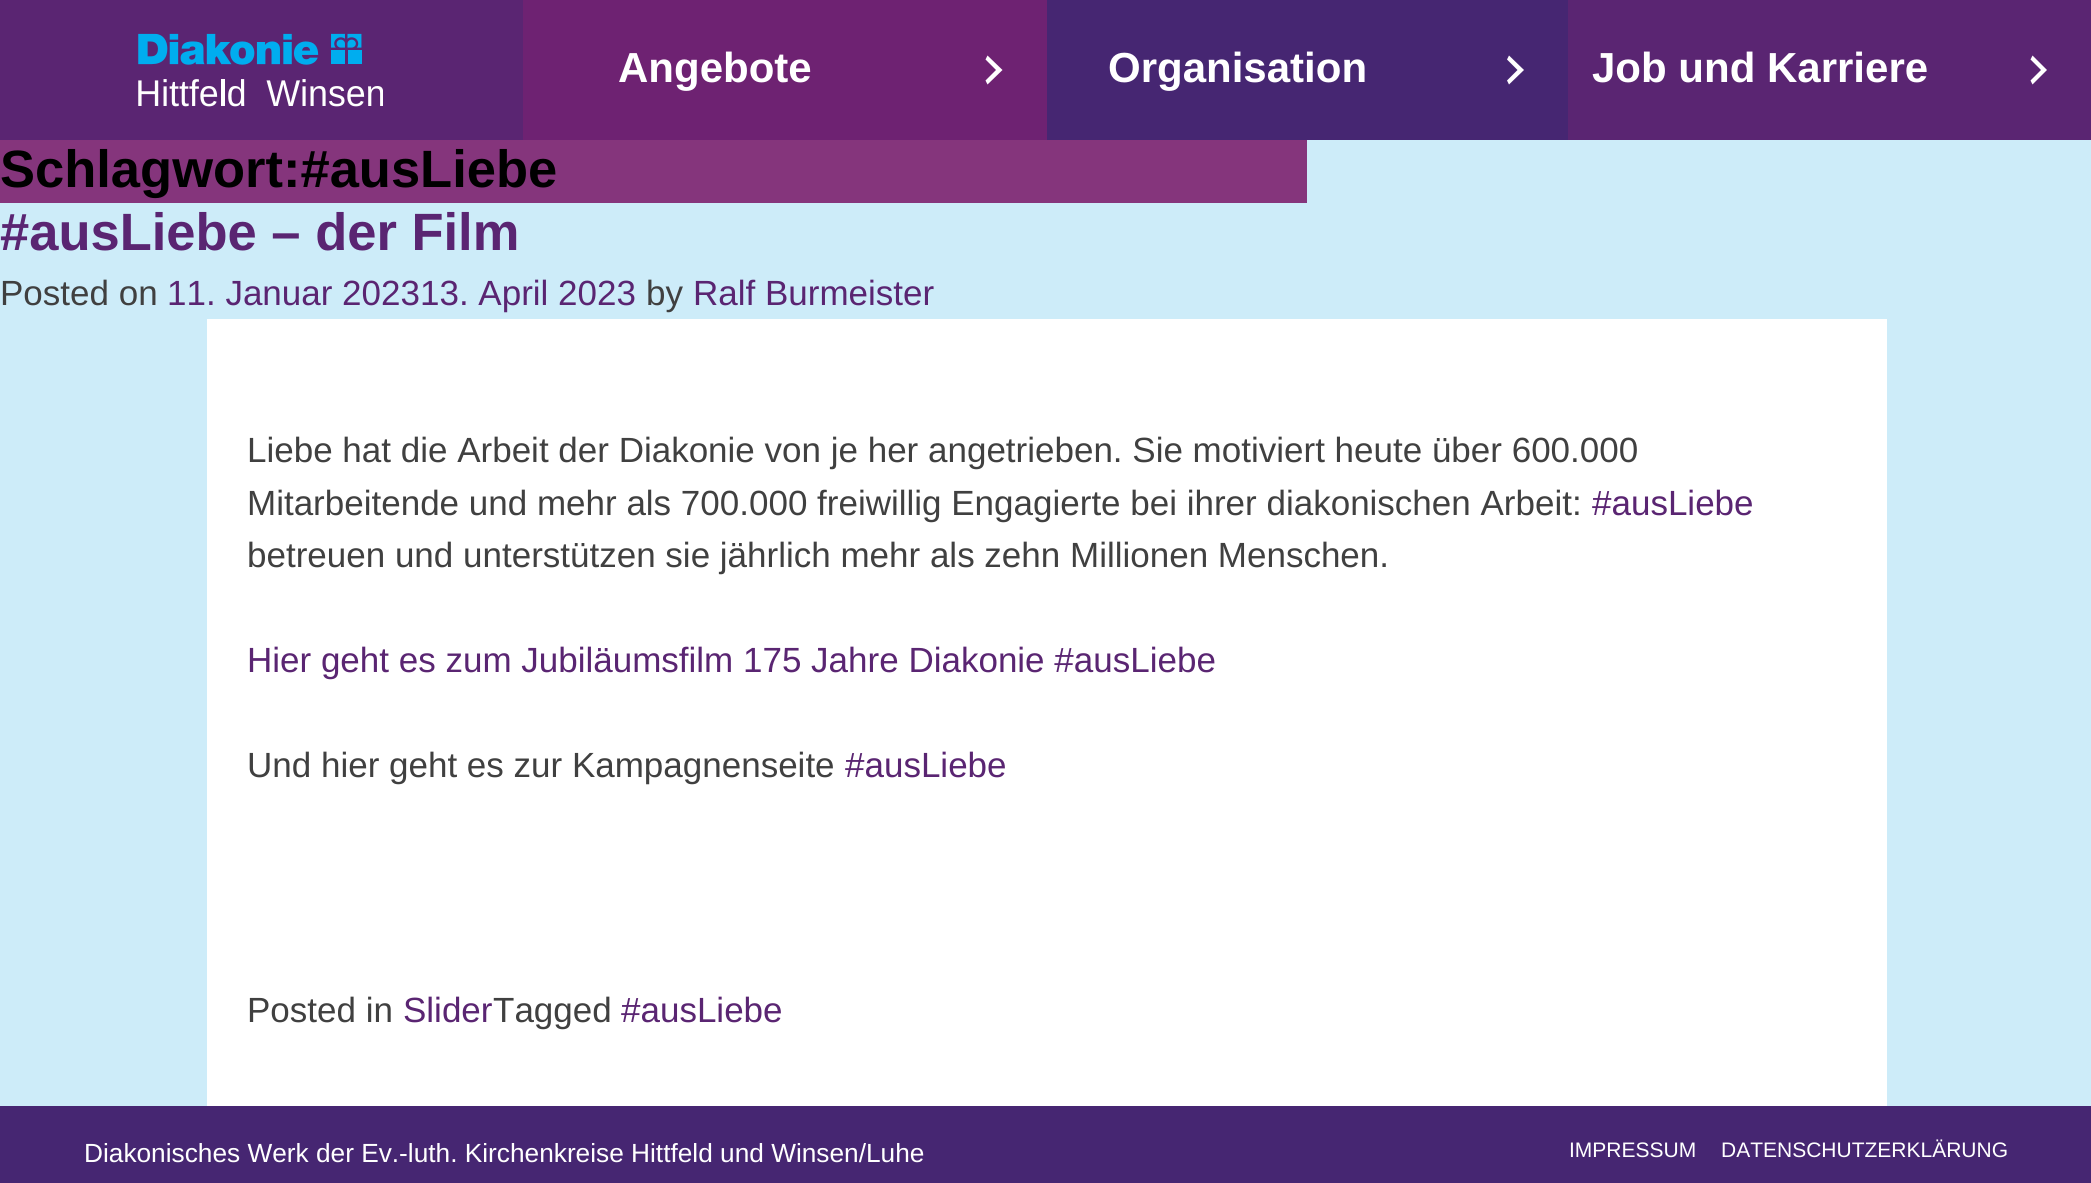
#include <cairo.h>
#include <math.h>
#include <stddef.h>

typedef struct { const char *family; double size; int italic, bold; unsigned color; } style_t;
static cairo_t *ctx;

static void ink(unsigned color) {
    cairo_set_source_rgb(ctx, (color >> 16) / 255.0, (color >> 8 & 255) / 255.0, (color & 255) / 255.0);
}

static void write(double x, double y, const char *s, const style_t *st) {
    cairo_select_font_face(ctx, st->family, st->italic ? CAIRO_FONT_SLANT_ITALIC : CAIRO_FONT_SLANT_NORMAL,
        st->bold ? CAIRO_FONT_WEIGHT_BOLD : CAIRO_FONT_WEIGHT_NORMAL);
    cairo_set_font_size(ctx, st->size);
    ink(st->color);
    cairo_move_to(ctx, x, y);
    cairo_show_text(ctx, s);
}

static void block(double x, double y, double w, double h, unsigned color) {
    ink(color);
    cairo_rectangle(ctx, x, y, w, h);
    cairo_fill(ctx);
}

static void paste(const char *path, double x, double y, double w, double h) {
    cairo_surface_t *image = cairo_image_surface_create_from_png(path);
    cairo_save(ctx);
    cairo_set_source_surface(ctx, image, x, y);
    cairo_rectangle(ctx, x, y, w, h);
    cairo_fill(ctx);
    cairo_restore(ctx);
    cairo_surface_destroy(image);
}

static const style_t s1 = {"Arimo", 42, 0, 1, 0xffffff};
static const style_t s2 = {"Arimo", 52.5, 0, 1, 0x000000};
static const style_t s3 = {"Arimo", 52.5, 0, 1, 0x5a2572};
static const style_t s4 = {"Arimo", 35, 0, 0, 0x404040};
static const style_t s5 = {"Arimo", 35, 0, 0, 0x5a2572};
static const style_t s6 = {"Arimo", 26.25, 0, 0, 0xffffff};
static const style_t s7 = {"Arimo", 21, 0, 0, 0xffffff};

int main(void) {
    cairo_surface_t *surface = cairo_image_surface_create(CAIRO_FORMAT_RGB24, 2091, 1183);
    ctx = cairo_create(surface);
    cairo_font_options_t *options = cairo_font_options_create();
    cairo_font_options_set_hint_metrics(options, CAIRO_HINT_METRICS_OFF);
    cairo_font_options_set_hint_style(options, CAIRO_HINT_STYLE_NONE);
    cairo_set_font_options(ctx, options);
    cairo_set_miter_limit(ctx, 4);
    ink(0xcdecf9);
    cairo_paint(ctx);
    block(0, 0, 2091, 140, 0x5a2572);
    paste("pic1.png", 138, 33, 245, 74);
    block(523, 0, 524, 140, 0x6e2272);
    write(618, 82, "Angebote", &s1);
    cairo_new_path(ctx);
    cairo_move_to(ctx, 985.5, 80.5);
    cairo_line_to(ctx, 996, 70);
    cairo_line_to(ctx, 985.5, 59.5);
    cairo_line_to(ctx, 987.5, 55.5);
    cairo_line_to(ctx, 1002.5, 70);
    cairo_line_to(ctx, 987.5, 84.5);
    cairo_close_path(ctx);
    cairo_fill(ctx);
    block(1047, 0, 521, 140, 0x462672);
    write(1108, 82, "Organisation", &s1);
    cairo_new_path(ctx);
    cairo_move_to(ctx, 1507, 80.5);
    cairo_line_to(ctx, 1517.5, 70);
    cairo_line_to(ctx, 1507, 59.5);
    cairo_line_to(ctx, 1509, 55.5);
    cairo_line_to(ctx, 1524, 70);
    cairo_line_to(ctx, 1509, 84.5);
    cairo_close_path(ctx);
    cairo_fill(ctx);
    write(1592, 82, "Job und Karriere", &s1);
    cairo_new_path(ctx);
    cairo_move_to(ctx, 2030.5, 80.5);
    cairo_line_to(ctx, 2041, 70);
    cairo_line_to(ctx, 2030.5, 59.5);
    cairo_line_to(ctx, 2032.5, 55.5);
    cairo_line_to(ctx, 2047, 70);
    cairo_line_to(ctx, 2032.5, 84.5);
    cairo_close_path(ctx);
    cairo_fill(ctx);
    block(0, 140, 1307, 63, 0x85357c);
    write(0, 187, "Schlagwort:#ausLiebe", &s2);
    write(0, 250, "#ausLiebe – der Film", &s3);
    write(0, 305, "Posted on", &s4);
    write(167, 305, "11. Januar 202313. April 2023", &s5);
    write(646, 305, "by", &s4);
    write(693, 305, "Ralf Burmeister", &s5);
    block(207, 319, 1680, 787, 0xffffff);
    write(247, 462, "Liebe hat die Arbeit der Diakonie von je her angetrieben. Sie motiviert heute über 600.000", &s4);
    write(247, 515, "Mitarbeitende und mehr als 700.000 freiwillig Engagierte bei ihrer diakonischen Arbeit:", &s4);
    write(1592, 515, "#ausLiebe", &s5);
    write(247, 567, "betreuen und unterstützen sie jährlich mehr als zehn Millionen Menschen.", &s4);
    write(247, 672, "Hier geht es zum Jubiläumsfilm 175 Jahre Diakonie #ausLiebe", &s5);
    write(247, 777, "Und hier geht es zur Kampagnenseite", &s4);
    write(845, 777, "#ausLiebe", &s5);
    write(247, 1022, "Posted in", &s4);
    write(403, 1022, "Slider", &s5);
    write(493, 1022, "Tagged", &s4);
    write(621, 1022, "#ausLiebe", &s5);
    block(0, 1106, 2091, 77, 0x462672);
    write(84, 1162, "Diakonisches Werk der Ev.-luth. Kirchenkreise Hittfeld und Winsen/Luhe", &s6);
    write(1569, 1157, "IMPRESSUM", &s7);
    write(1721, 1157, "DATENSCHUTZERKLÄRUNG", &s7);
    cairo_surface_write_to_png(surface, "screenshot.png");
    cairo_font_options_destroy(options);
    cairo_destroy(ctx);
    cairo_surface_destroy(surface);
    return 0;
}
